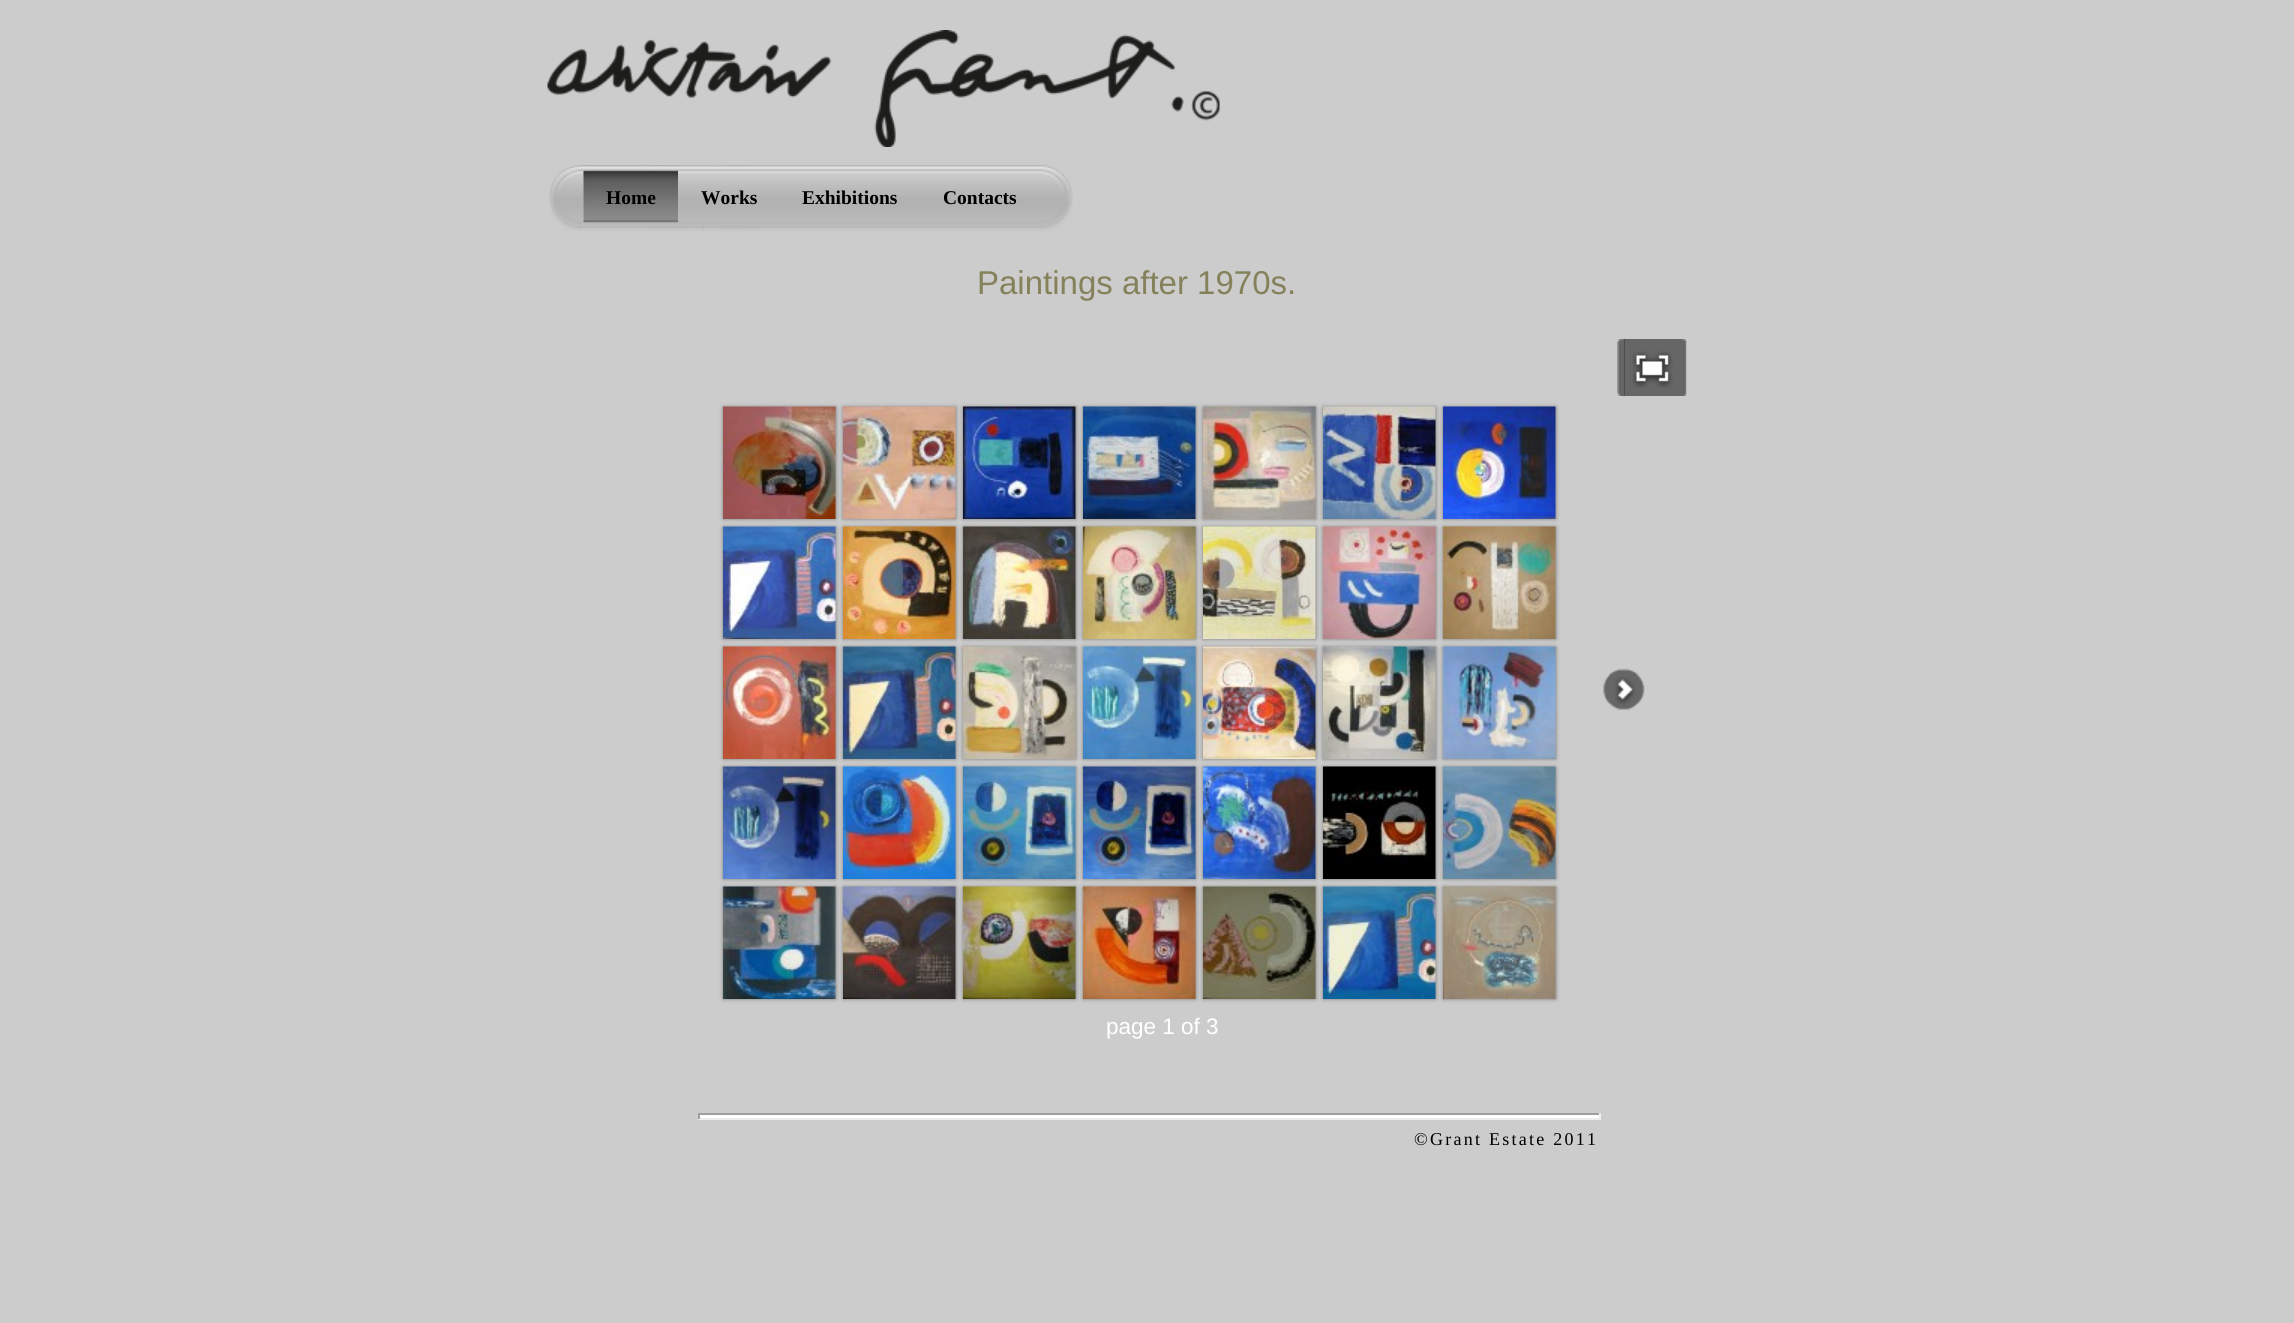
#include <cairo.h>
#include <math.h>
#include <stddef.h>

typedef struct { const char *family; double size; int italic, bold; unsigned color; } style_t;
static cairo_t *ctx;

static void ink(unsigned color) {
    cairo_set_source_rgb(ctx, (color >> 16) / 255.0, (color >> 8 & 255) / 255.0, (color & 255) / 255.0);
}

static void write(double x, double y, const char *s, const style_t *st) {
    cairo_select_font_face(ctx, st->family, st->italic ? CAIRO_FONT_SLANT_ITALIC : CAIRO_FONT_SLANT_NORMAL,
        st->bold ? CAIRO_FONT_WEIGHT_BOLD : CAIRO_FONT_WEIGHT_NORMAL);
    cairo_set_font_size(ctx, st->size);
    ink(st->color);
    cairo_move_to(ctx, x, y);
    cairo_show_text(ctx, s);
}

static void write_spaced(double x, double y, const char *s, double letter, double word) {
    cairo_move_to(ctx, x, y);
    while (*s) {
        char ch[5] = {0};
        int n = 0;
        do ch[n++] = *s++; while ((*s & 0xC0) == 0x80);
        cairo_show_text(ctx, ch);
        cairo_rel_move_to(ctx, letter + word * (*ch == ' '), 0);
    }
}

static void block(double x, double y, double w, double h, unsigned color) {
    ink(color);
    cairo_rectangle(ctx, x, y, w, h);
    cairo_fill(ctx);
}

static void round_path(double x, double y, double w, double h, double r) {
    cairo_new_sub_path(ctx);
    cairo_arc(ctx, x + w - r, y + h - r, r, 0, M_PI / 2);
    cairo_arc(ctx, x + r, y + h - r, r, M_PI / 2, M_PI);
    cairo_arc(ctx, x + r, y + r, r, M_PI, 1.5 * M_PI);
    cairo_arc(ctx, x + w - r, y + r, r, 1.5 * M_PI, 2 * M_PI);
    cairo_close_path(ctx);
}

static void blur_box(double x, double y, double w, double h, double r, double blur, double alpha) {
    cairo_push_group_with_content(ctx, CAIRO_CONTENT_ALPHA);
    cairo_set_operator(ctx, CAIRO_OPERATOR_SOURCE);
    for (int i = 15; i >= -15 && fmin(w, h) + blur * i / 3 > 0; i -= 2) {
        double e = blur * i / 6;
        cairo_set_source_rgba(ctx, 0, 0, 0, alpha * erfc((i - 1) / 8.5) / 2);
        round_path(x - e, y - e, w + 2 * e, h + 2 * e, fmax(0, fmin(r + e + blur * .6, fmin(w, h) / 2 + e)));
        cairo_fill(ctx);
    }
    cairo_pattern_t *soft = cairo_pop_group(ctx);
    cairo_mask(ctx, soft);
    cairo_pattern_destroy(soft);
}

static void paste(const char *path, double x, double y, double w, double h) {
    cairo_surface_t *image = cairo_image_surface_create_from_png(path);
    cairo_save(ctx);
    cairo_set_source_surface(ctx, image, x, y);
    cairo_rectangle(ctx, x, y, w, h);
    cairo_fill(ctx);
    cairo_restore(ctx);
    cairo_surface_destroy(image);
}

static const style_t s1 = {"Liberation Serif", 19.5, 0, 1, 0x000000};
static const style_t s2 = {"Liberation Sans", 33, 0, 0, 0x84815b};
static const style_t s3 = {"Liberation Sans", 22.5, 0, 0, 0xffffff};

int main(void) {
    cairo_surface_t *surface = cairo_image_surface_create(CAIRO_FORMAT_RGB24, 2294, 1323);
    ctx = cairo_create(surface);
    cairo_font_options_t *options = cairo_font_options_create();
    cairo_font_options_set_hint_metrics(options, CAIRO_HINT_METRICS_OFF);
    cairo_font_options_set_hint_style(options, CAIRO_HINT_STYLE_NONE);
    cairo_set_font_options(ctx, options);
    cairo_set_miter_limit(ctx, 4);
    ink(0xcccccc);
    cairo_paint(ctx);
    paste("pic1.png", 547, 30, 673, 117);
    paste("pic2.png", 549, 165, 35, 66);
    paste("pic3.png", 583, 165, 490, 67);
    paste("pic4.png", 583, 165, 8, 58);
    paste("pic5.png", 591, 165, 87, 58);
    write(701, 204, "Works", &s1);
    write(802, 204, "Exhibitions", &s1);
    write(606, 204, "Home", &s1);
    write(943, 204, "Contacts", &s1);
    write(977, 294, "Paintings after 1970s.", &s2);
    block(1624, 339, 56, 57, 0x666666);
    paste("pic6.png", 1617, 339, 8, 57);
    paste("pic7.png", 1632, 351, 41, 37);
    paste("pic8.png", 1680, 339, 7, 57);
    ink(0x000000);
    blur_box(723, 407, 113, 112, 0, 2, 0.4);
    paste("pic9.png", 723, 406, 113, 113);
    blur_box(843, 407, 113, 112, 0, 2, 0.4);
    paste("pic10.png", 843, 406, 113, 113);
    blur_box(963, 407, 113, 112, 0, 2, 0.4);
    paste("pic11.png", 963, 406, 113, 113);
    blur_box(1083, 407, 113, 112, 0, 2, 0.4);
    paste("pic12.png", 1083, 406, 113, 113);
    blur_box(1203, 407, 113, 112, 0, 2, 0.4);
    paste("pic13.png", 1203, 406, 113, 113);
    blur_box(1323, 407, 113, 112, 0, 2, 0.4);
    paste("pic14.png", 1323, 406, 113, 113);
    blur_box(1443, 407, 113, 112, 0, 2, 0.4);
    paste("pic15.png", 1443, 406, 113, 113);
    blur_box(723, 527, 113, 112, 0, 2, 0.4);
    paste("pic16.png", 723, 526, 113, 113);
    blur_box(843, 527, 113, 112, 0, 2, 0.4);
    paste("pic17.png", 843, 526, 113, 113);
    blur_box(963, 527, 113, 112, 0, 2, 0.4);
    paste("pic18.png", 963, 526, 113, 113);
    blur_box(1083, 527, 113, 112, 0, 2, 0.4);
    paste("pic19.png", 1083, 526, 113, 113);
    blur_box(1203, 527, 113, 112, 0, 2, 0.4);
    paste("pic20.png", 1203, 526, 113, 113);
    blur_box(1323, 527, 113, 112, 0, 2, 0.4);
    paste("pic21.png", 1323, 526, 113, 113);
    blur_box(1443, 527, 113, 112, 0, 2, 0.4);
    paste("pic22.png", 1443, 526, 113, 113);
    blur_box(723, 647, 113, 112, 0, 2, 0.4);
    paste("pic23.png", 723, 646, 113, 113);
    blur_box(843, 647, 113, 112, 0, 2, 0.4);
    paste("pic24.png", 843, 646, 113, 113);
    blur_box(963, 647, 113, 112, 0, 2, 0.4);
    paste("pic25.png", 963, 646, 113, 113);
    blur_box(1083, 647, 113, 112, 0, 2, 0.4);
    paste("pic26.png", 1083, 646, 113, 113);
    blur_box(1203, 647, 113, 112, 0, 2, 0.4);
    paste("pic27.png", 1203, 646, 113, 113);
    blur_box(1323, 647, 113, 112, 0, 2, 0.4);
    paste("pic28.png", 1323, 646, 113, 113);
    blur_box(1443, 647, 113, 112, 0, 2, 0.4);
    paste("pic29.png", 1443, 646, 113, 113);
    blur_box(723, 767, 113, 112, 0, 2, 0.4);
    paste("pic30.png", 723, 766, 113, 113);
    blur_box(843, 767, 113, 112, 0, 2, 0.4);
    paste("pic31.png", 843, 766, 113, 113);
    blur_box(963, 767, 113, 112, 0, 2, 0.4);
    paste("pic32.png", 963, 766, 113, 113);
    blur_box(1083, 767, 113, 112, 0, 2, 0.4);
    paste("pic33.png", 1083, 766, 113, 113);
    blur_box(1203, 767, 113, 112, 0, 2, 0.4);
    paste("pic34.png", 1203, 766, 113, 113);
    blur_box(1323, 767, 113, 112, 0, 2, 0.4);
    paste("pic35.png", 1323, 766, 113, 113);
    blur_box(1443, 767, 113, 112, 0, 2, 0.4);
    paste("pic36.png", 1443, 766, 113, 113);
    blur_box(723, 887, 113, 112, 0, 2, 0.4);
    paste("pic37.png", 723, 886, 113, 113);
    blur_box(843, 887, 113, 112, 0, 2, 0.4);
    paste("pic38.png", 843, 886, 113, 113);
    blur_box(963, 887, 113, 112, 0, 2, 0.4);
    paste("pic39.png", 963, 886, 113, 113);
    blur_box(1083, 887, 113, 112, 0, 2, 0.4);
    paste("pic40.png", 1083, 886, 113, 113);
    blur_box(1203, 887, 113, 112, 0, 2, 0.4);
    paste("pic41.png", 1203, 886, 113, 113);
    blur_box(1323, 887, 113, 112, 0, 2, 0.4);
    paste("pic42.png", 1323, 886, 113, 113);
    blur_box(1443, 887, 113, 112, 0, 2, 0.4);
    paste("pic43.png", 1443, 886, 113, 113);
    paste("pic44.png", 1603, 668, 42, 42);
    write(1106, 1034, "page 1 of 3", &s3);
    block(698, 1115, 903, 3, 0xffffff);
    block(698, 1113, 903, 2, 0x9f9f9f);
    block(1599, 1113, 2, 6, 0xeeeeee);
    block(698, 1118, 903, 2, 0xeeeeee);
    block(698, 1113, 2, 6, 0x9f9f9f);
    cairo_select_font_face(ctx, "Liberation Serif", CAIRO_FONT_SLANT_NORMAL, CAIRO_FONT_WEIGHT_NORMAL);
    cairo_set_font_size(ctx, 18);
    ink(0x000000);
    write_spaced(1414, 1145, "©Grant Estate 2011", 2.25, 0);
    cairo_surface_write_to_png(surface, "screenshot.png");
    cairo_font_options_destroy(options);
    cairo_destroy(ctx);
    cairo_surface_destroy(surface);
    return 0;
}
